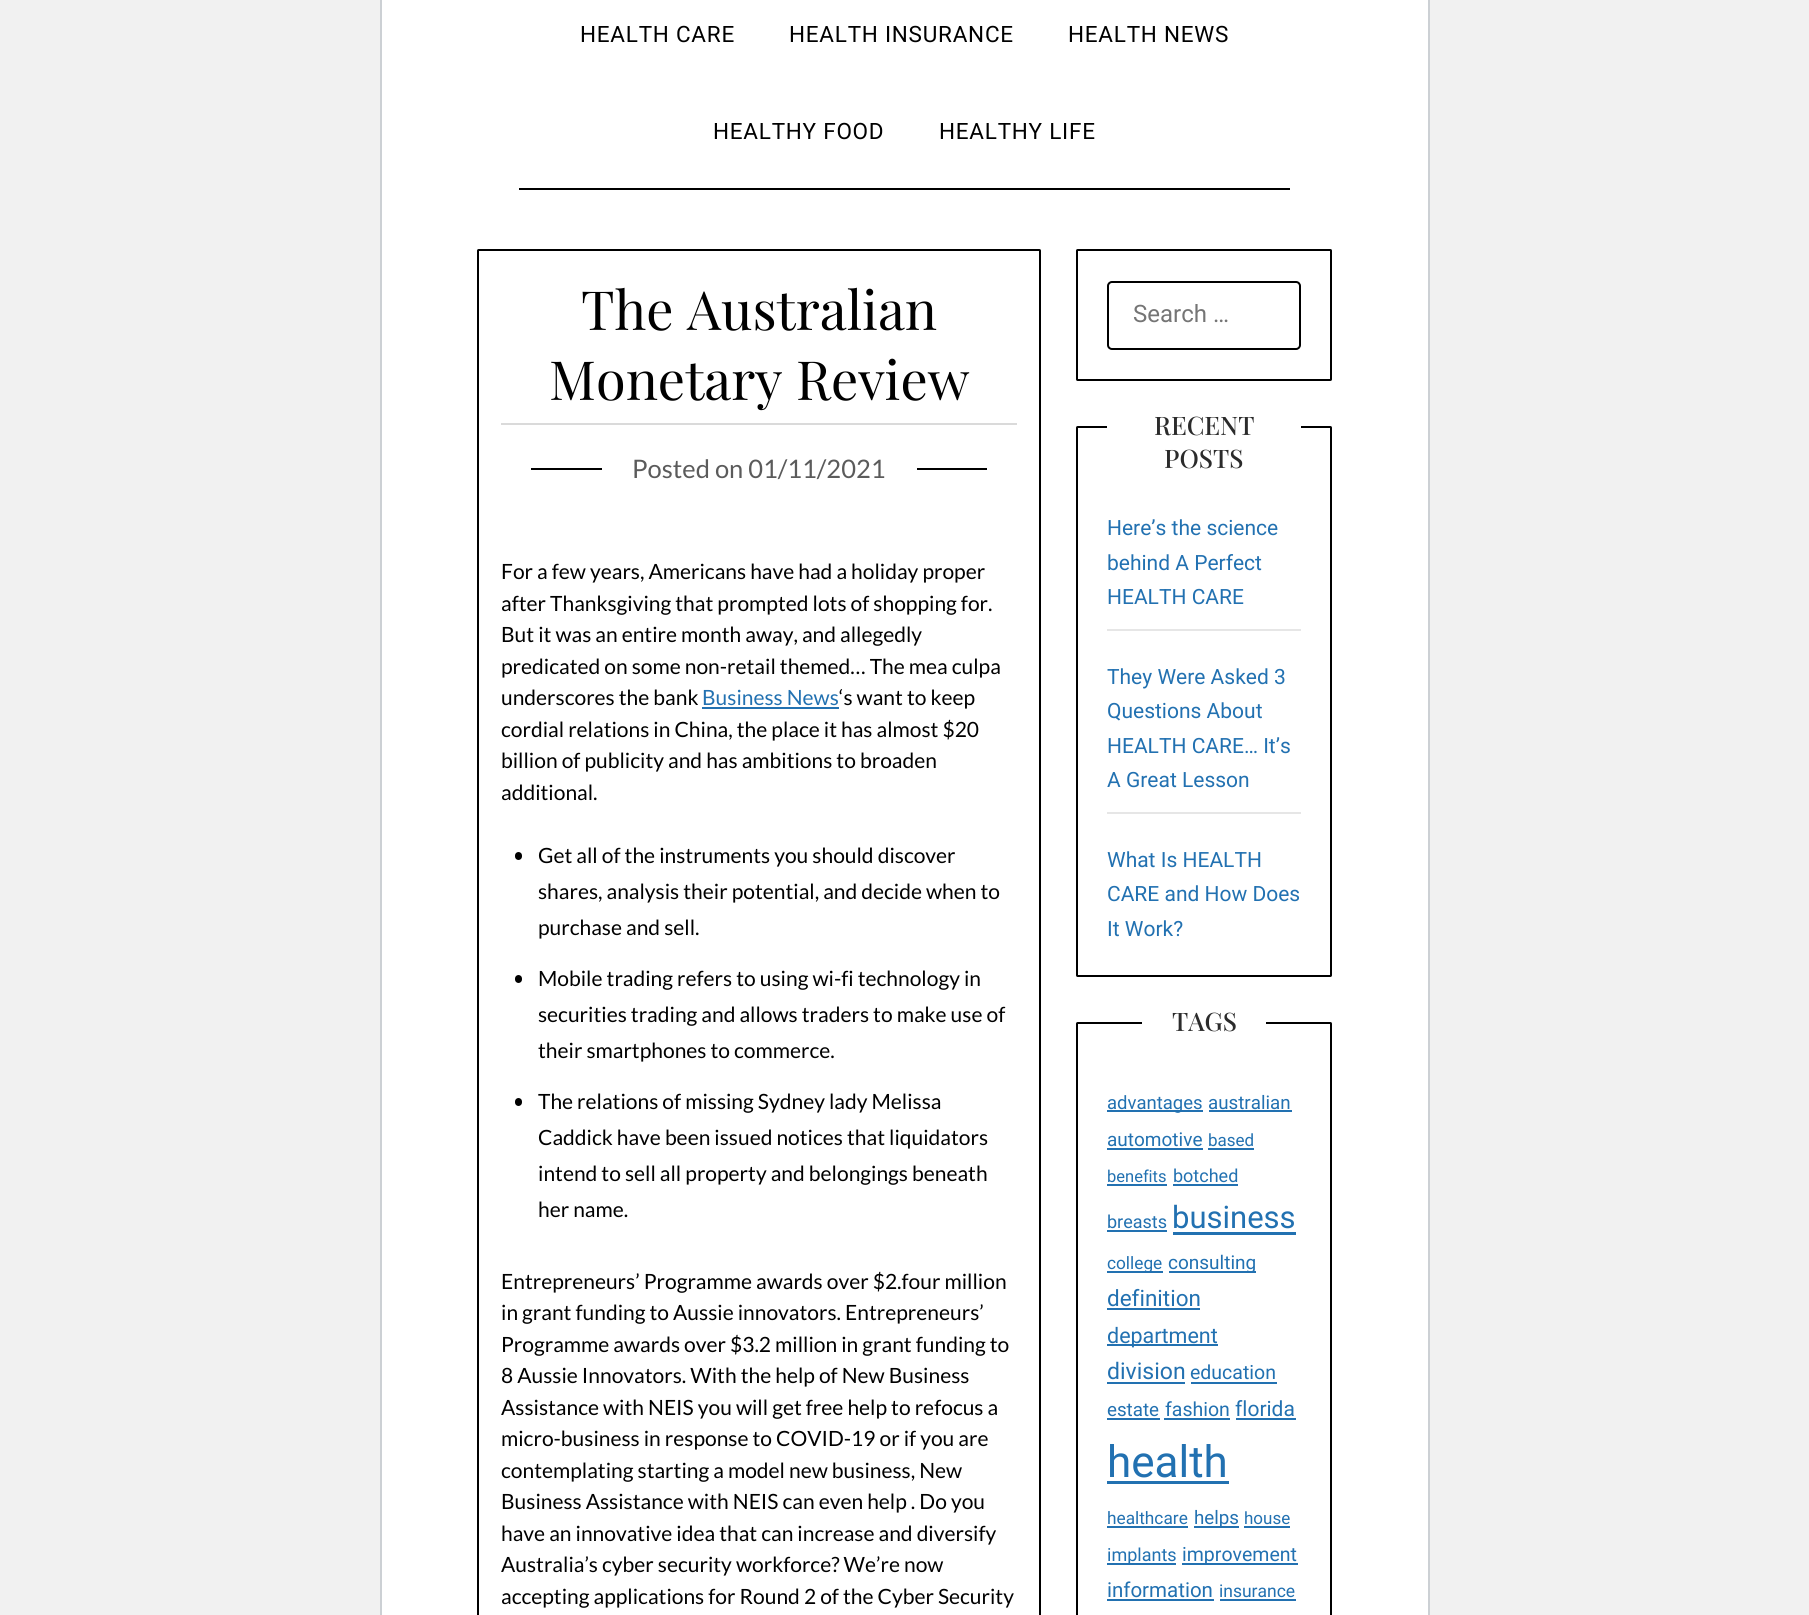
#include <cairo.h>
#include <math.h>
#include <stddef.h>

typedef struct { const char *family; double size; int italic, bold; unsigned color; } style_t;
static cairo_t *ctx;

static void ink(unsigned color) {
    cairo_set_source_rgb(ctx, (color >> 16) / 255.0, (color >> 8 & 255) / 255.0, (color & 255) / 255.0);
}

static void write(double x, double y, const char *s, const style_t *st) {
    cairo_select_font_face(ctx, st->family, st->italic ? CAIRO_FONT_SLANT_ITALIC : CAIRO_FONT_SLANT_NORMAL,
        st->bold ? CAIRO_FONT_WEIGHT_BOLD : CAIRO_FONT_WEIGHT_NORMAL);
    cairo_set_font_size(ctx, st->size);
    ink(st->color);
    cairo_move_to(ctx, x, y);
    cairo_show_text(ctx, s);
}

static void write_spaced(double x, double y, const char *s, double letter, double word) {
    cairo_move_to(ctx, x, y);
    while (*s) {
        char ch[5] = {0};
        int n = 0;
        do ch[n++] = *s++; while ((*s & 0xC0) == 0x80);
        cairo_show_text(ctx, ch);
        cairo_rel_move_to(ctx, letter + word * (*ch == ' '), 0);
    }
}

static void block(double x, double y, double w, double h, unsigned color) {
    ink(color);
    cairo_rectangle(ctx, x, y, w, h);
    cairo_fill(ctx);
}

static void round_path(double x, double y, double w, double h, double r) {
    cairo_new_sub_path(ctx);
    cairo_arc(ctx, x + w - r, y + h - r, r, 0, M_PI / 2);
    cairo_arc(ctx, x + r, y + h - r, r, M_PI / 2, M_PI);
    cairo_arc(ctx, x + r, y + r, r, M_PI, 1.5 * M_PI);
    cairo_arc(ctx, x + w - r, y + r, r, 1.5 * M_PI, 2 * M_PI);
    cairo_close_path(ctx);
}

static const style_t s1 = {"Playfair Display", 54, 0, 0, 0x000000};
static const style_t s2 = {"Lato", 25.5, 0, 0, 0x5b5b5b};
static const style_t s3 = {"Lato", 21, 0, 0, 0x000000};
static const style_t s4 = {"Lato", 21, 0, 0, 0x2271b1};
static const style_t s5 = {"Roboto", 24, 0, 0, 0x757575};
static const style_t s6 = {"Playfair Display Medium", 25.5, 0, 0, 0x2b2b2b};
static const style_t s7 = {"Roboto", 21, 0, 0, 0x2271b1};
static const style_t s8 = {"Roboto", 18.5, 0, 0, 0x2271b1};
static const style_t s9 = {"Roboto", 18.75, 0, 0, 0x2271b1};
static const style_t s10 = {"Roboto", 19, 0, 0, 0x2271b1};
static const style_t s11 = {"Roboto", 17, 0, 0, 0x2271b1};
static const style_t s12 = {"Roboto", 16.5, 0, 0, 0x2271b1};
static const style_t s13 = {"Roboto", 18, 0, 0, 0x2271b1};
static const style_t s14 = {"Roboto", 31, 0, 0, 0x2271b1};
static const style_t s15 = {"Roboto", 17.25, 0, 0, 0x2271b1};
static const style_t s16 = {"Roboto", 22.5, 0, 0, 0x2271b1};
static const style_t s17 = {"Roboto", 21.5, 0, 0, 0x2271b1};
static const style_t s18 = {"Roboto", 23, 0, 0, 0x2271b1};
static const style_t s19 = {"Roboto", 19.5, 0, 0, 0x2271b1};
static const style_t s20 = {"Roboto", 44, 0, 0, 0x2271b1};
static const style_t s21 = {"Roboto", 20.5, 0, 0, 0x2271b1};
static const style_t s22 = {"Roboto", 17.5, 0, 0, 0x2271b1};

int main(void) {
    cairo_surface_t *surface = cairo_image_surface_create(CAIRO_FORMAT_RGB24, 1809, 1615);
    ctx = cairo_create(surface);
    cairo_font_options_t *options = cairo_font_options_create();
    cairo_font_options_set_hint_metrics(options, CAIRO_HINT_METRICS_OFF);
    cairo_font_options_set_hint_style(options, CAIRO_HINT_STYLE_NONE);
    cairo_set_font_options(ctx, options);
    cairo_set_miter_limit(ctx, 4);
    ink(0xf1f1f1);
    cairo_paint(ctx);
    ink(0xffffff);
    cairo_rectangle(ctx, 381, -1, 1048, 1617);
    cairo_fill_preserve(ctx);
    ink(0xccd0d4);
    cairo_stroke(ctx);
    block(519, 188, 771, 2, 0x000000);
    cairo_select_font_face(ctx, "Roboto", CAIRO_FONT_SLANT_NORMAL, CAIRO_FONT_WEIGHT_NORMAL);
    cairo_set_font_size(ctx, 22.5);
    write_spaced(580, 42, "HEALTH CARE", 0.75, 0);
    write_spaced(789, 42, "HEALTH INSURANCE", 0.75, 0);
    write_spaced(1068, 42, "HEALTH NEWS", 0.75, 0);
    write_spaced(713, 139, "HEALTHY FOOD", 0.75, 0);
    write_spaced(939, 139, "HEALTHY LIFE", 0.75, 0);
    round_path(478, 250, 562, 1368, 0.5);
    cairo_stroke(ctx);
    block(501, 423, 516, 2, 0xdadada);
    write(581, 330, "The Australian", &s1);
    write(549, 400, "Monetary Review", &s1);
    block(531, 468, 456, 2, 0x000000);
    block(602, 468, 315, 2, 0xffffff);
    write(632, 478, "Posted on 01/11/2021", &s2);
    write(501, 579, "For a few years, Americans have had a holiday proper", &s3);
    write(501, 611, "after Thanksgiving that prompted lots of shopping for.", &s3);
    write(501, 642, "But it was an entire month away, and allegedly", &s3);
    write(501, 674, "predicated on some non-retail themed… The mea culpa", &s3);
    write(501, 705, "underscores the bank", &s3);
    write(702, 705, "Business News", &s4);
    block(702, 707, 137, 2, 0x2271b1);
    write(839, 705, "‘s want to keep", &s3);
    write(501, 737, "cordial relations in China, the place it has almost $20", &s3);
    write(501, 768, "billion of publicity and has ambitions to broaden", &s3);
    write(501, 800, "additional.", &s3);
    round_path(515, 852, 7, 8, 3.5);
    cairo_fill(ctx);
    write(538, 863, "Get all of the instruments you should discover", &s3);
    write(538, 899, "shares, analysis their potential, and decide when to", &s3);
    write(538, 935, "purchase and sell.", &s3);
    round_path(515, 975, 7, 8, 3.5);
    cairo_fill(ctx);
    write(538, 986, "Mobile trading refers to using wi-fi technology in", &s3);
    write(538, 1022, "securities trading and allows traders to make use of", &s3);
    write(538, 1058, "their smartphones to commerce.", &s3);
    round_path(515, 1098, 7, 8, 3.5);
    cairo_fill(ctx);
    write(538, 1109, "The relations of missing Sydney lady Melissa", &s3);
    write(538, 1145, "Caddick have been issued notices that liquidators", &s3);
    write(538, 1181, "intend to sell all property and belongings beneath", &s3);
    write(538, 1217, "her name.", &s3);
    write(501, 1289, "Entrepreneurs’ Programme awards over $2.four million", &s3);
    write(501, 1320, "in grant funding to Aussie innovators. Entrepreneurs’", &s3);
    write(501, 1352, "Programme awards over $3.2 million in grant funding to", &s3);
    write(501, 1383, "8 Aussie Innovators. With the help of New Business", &s3);
    write(501, 1415, "Assistance with NEIS you will get free help to refocus a", &s3);
    write(501, 1446, "micro-business in response to COVID-19 or if you are", &s3);
    write(501, 1478, "contemplating starting a model new business, New", &s3);
    write(501, 1509, "Business Assistance with NEIS can even help . Do you", &s3);
    write(501, 1541, "have an innovative idea that can increase and diversify", &s3);
    write(501, 1572, "Australia’s cyber security workforce? We’re now", &s3);
    write(501, 1604, "accepting applications for Round 2 of the Cyber Security", &s3);
    round_path(1077, 250, 254, 130, 0.5);
    cairo_stroke(ctx);
    round_path(1108, 282, 192, 67, 4);
    cairo_stroke(ctx);
    write(1133, 322, "Search …", &s5);
    round_path(1077, 427, 254, 549, 0.5);
    ink(0x000000);
    cairo_stroke(ctx);
    block(1107, 426, 194, 2, 0xffffff);
    write(1154, 435, "RECENT", &s6);
    write(1164, 468, "POSTS", &s6);
    block(1107, 629, 194, 2, 0xe6e6e6);
    write(1107, 535, "Here’s the science", &s7);
    write(1107, 570, "behind A Perfect", &s7);
    write(1107, 604, "HEALTH CARE", &s7);
    block(1107, 812, 194, 2, 0xe6e6e6);
    write(1107, 684, "They Were Asked 3", &s7);
    write(1107, 718, "Questions About", &s7);
    write(1107, 753, "HEALTH CARE… It’s", &s7);
    write(1107, 787, "A Great Lesson", &s7);
    write(1107, 867, "What Is HEALTH", &s7);
    write(1107, 901, "CARE and How Does", &s7);
    write(1107, 936, "It Work?", &s7);
    round_path(1077, 1023, 254, 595, 0.5);
    ink(0x000000);
    cairo_stroke(ctx);
    block(1142, 1022, 124, 2, 0xffffff);
    write(1172, 1031, "TAGS", &s6);
    block(1107, 1110, 96, 2, 0x2271b1);
    write(1107, 1109, "advantages", &s8);
    write(1208, 1109, "australian", &s9);
    block(1209, 1110, 83, 2, 0x2271b1);
    write(1107, 1146, "automotive", &s10);
    block(1107, 1148, 96, 2, 0x2271b1);
    write(1208, 1146, "based", &s11);
    block(1208, 1148, 46, 2, 0x2271b1);
    write(1107, 1182, "benefits", &s12);
    block(1107, 1184, 60, 2, 0x2271b1);
    write(1173, 1182, "botched", &s13);
    block(1173, 1184, 65, 2, 0x2271b1);
    write(1107, 1228, "breasts", &s13);
    block(1107, 1230, 60, 2, 0x2271b1);
    write(1172, 1228, "business", &s14);
    block(1173, 1232, 123, 3, 0x2271b1);
    block(1107, 1271, 56, 2, 0x2271b1);
    write(1107, 1269, "college", &s15);
    block(1169, 1271, 87, 2, 0x2271b1);
    write(1168, 1269, "consulting", &s10);
    write(1107, 1306, "definition", &s16);
    block(1107, 1308, 93, 2, 0x2271b1);
    block(1107, 1344, 111, 2, 0x2271b1);
    write(1107, 1343, "department", &s17);
    write(1107, 1379, "division", &s18);
    block(1107, 1382, 78, 2, 0x2271b1);
    write(1190, 1379, "education", &s19);
    block(1191, 1382, 86, 2, 0x2271b1);
    write(1107, 1416, "estate", &s9);
    block(1107, 1418, 53, 2, 0x2271b1);
    write(1165, 1416, "fashion", &s19);
    block(1164, 1418, 66, 2, 0x2271b1);
    write(1235, 1416, "florida", &s7);
    block(1236, 1418, 60, 2, 0x2271b1);
    write(1107, 1477, "health", &s20);
    block(1107, 1481, 122, 3, 0x2271b1);
    write(1107, 1524, "healthcare", &s15);
    block(1107, 1526, 81, 2, 0x2271b1);
    block(1194, 1526, 45, 2, 0x2271b1);
    write(1194, 1524, "helps", &s9);
    write(1244, 1524, "house", &s11);
    block(1244, 1526, 46, 2, 0x2271b1);
    block(1107, 1563, 69, 2, 0x2271b1);
    write(1107, 1561, "implants", &s13);
    block(1182, 1563, 116, 2, 0x2271b1);
    write(1182, 1561, "improvement", &s19);
    write(1107, 1597, "information", &s21);
    block(1107, 1599, 107, 2, 0x2271b1);
    write(1219, 1597, "insurance", &s22);
    block(1220, 1599, 76, 2, 0x2271b1);
    cairo_surface_write_to_png(surface, "screenshot.png");
    cairo_font_options_destroy(options);
    cairo_destroy(ctx);
    cairo_surface_destroy(surface);
    return 0;
}
